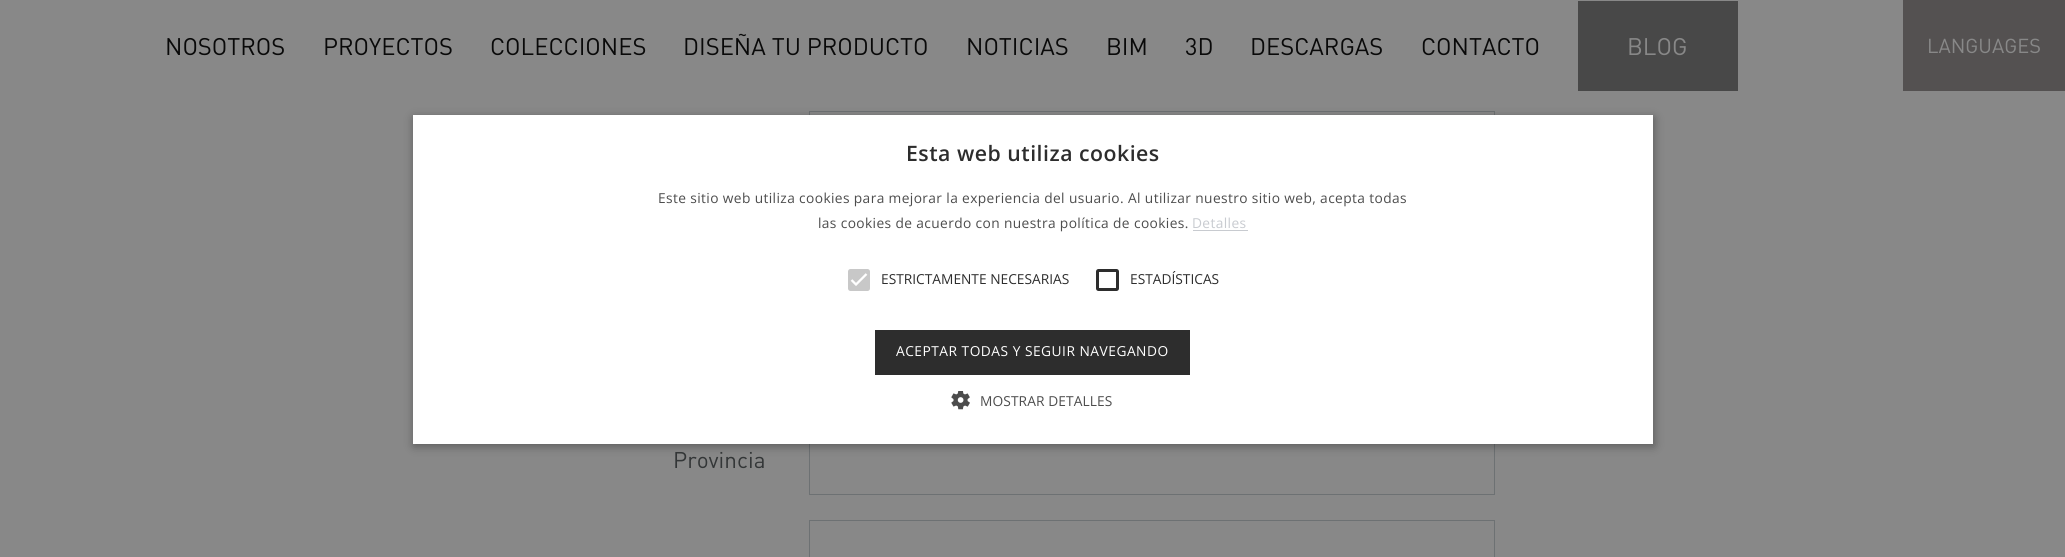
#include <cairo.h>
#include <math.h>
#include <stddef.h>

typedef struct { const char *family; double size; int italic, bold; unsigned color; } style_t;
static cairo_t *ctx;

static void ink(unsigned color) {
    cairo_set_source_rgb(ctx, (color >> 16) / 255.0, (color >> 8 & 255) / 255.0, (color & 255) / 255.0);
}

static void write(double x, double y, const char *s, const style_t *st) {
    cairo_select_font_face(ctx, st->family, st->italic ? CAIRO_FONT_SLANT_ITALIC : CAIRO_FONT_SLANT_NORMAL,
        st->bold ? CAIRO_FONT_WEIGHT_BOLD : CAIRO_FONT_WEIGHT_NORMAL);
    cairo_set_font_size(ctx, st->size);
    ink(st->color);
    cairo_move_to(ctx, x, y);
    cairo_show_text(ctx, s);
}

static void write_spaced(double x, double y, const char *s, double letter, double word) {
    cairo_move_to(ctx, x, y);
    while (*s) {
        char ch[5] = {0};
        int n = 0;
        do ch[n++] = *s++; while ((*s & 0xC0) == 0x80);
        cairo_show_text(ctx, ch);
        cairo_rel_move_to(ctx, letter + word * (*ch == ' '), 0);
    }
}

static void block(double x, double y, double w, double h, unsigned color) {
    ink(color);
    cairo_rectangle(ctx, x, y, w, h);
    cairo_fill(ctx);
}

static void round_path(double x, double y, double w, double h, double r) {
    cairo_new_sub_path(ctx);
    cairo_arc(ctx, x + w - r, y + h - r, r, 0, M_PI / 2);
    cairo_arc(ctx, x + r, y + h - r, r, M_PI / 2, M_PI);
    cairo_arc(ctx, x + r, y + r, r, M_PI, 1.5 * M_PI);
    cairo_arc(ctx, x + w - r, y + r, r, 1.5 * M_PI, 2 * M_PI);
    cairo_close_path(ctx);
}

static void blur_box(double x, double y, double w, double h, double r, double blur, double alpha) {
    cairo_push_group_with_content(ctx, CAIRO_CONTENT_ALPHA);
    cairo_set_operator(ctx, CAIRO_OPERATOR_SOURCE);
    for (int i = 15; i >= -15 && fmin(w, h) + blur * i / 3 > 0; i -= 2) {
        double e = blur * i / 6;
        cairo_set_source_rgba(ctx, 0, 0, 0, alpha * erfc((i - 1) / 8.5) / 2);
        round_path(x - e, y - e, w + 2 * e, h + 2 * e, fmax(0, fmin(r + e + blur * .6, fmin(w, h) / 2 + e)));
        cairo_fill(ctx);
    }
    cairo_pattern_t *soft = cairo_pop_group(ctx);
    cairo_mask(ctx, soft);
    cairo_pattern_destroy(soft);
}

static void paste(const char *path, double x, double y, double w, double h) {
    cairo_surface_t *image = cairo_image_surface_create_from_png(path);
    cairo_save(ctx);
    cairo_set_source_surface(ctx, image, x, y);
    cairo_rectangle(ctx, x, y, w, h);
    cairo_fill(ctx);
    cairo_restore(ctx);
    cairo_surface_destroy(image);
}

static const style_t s1 = {"DIN", 23.75, 0, 0, 0x090909};
static const style_t s2 = {"DIN", 23.75, 0, 0, 0x888888};
static const style_t s3 = {"DIN", 20, 0, 0, 0x888888};
static const style_t s4 = {"Open Sans", 13.75, 0, 0, 0x2d2d2d};
static const style_t s5 = {"DIN", 22.5, 0, 0, 0x333637};

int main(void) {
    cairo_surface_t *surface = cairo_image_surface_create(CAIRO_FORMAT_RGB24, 2065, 557);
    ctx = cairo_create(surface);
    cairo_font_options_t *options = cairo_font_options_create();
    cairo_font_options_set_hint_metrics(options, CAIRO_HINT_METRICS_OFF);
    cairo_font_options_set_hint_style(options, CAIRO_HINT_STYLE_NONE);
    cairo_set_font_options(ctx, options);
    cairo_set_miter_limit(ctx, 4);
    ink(0x888888);
    cairo_paint(ctx);
    write(165, 55, "NOSOTROS", &s1);
    write(323, 55, "PROYECTOS", &s1);
    write(490, 55, "COLECCIONES", &s1);
    write(683, 55, "DISEÑA TU PRODUCTO", &s1);
    write(966, 55, "NOTICIAS", &s1);
    write(1106, 55, "BIM", &s1);
    write(1185, 55, "3D", &s1);
    write(1250, 55, "DESCARGAS", &s1);
    write(1421, 55, "CONTACTO", &s1);
    block(1578, 1, 160, 90, 0x484848);
    write(1627, 55, "BLOG", &s2);
    block(1903, 0, 162, 91, 0x545151);
    write(1927, 53, "LANGUAGES", &s3);
    cairo_rectangle(ctx, 809.5, 111.5, 685, 56);
    ink(0x6d7173);
    cairo_set_line_width(ctx, 1);
    cairo_stroke(ctx);
    cairo_rectangle(ctx, 809.5, 439.5, 685, 55);
    cairo_stroke(ctx);
    ink(0x000000);
    blur_box(414, 118, 1240, 328, 0, 5, 0.35);
    block(413, 115, 1240, 329, 0xffffff);
    cairo_select_font_face(ctx, "Open Sans SemiBold", CAIRO_FONT_SLANT_NORMAL, CAIRO_FONT_WEIGHT_NORMAL);
    cairo_set_font_size(ctx, 21.25);
    ink(0x2d2d2d);
    write_spaced(906, 161, "Esta web utiliza cookies", 0.5, 0);
    cairo_select_font_face(ctx, "Open Sans", CAIRO_FONT_SLANT_NORMAL, CAIRO_FONT_WEIGHT_NORMAL);
    cairo_set_font_size(ctx, 13.75);
    ink(0x4d4d4d);
    write_spaced(658, 203, "Este sitio web utiliza cookies para mejorar la experiencia del usuario. Al utilizar nuestro sitio web, acepta todas", 0.38, 0);
    write_spaced(818, 228, "las cookies de acuerdo con nuestra política de cookies.", 0.38, 0);
    ink(0xc8cbd0);
    write_spaced(1192, 228, "Detalles", 0.38, 0);
    block(1193, 230, 55, 1, 0xc8cbd0);
    ink(0xc8c8c8);
    round_path(848, 269, 22, 22, 2.5);
    cairo_fill(ctx);
    cairo_new_path(ctx);
    cairo_move_to(ctx, 851.5, 280);
    cairo_line_to(ctx, 856, 284.5);
    cairo_line_to(ctx, 866.5, 274);
    ink(0xffffff);
    cairo_set_line_width(ctx, 2.3);
    cairo_stroke(ctx);
    write(881, 284, "ESTRICTAMENTE NECESARIAS", &s4);
    round_path(1097.5, 270.5, 20, 19, 1);
    cairo_set_line_width(ctx, 3);
    cairo_stroke(ctx);
    write(1130, 284, "ESTADÍSTICAS", &s4);
    block(875, 330, 315, 45, 0x2d2d2d);
    ink(0xffffff);
    write_spaced(896, 356, "ACEPTAR TODAS Y SEGUIR NAVEGANDO", 0.5, 0);
    paste("pic1.png", 951, 391, 19, 19);
    ink(0x4d4d4d);
    write_spaced(980, 406, "MOSTRAR DETALLES", 0.1, 0);
    write(673, 468, "Provincia", &s5);
    cairo_rectangle(ctx, 809.5, 520.5, 685, 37);
    ink(0x6d7173);
    cairo_set_line_width(ctx, 1);
    cairo_stroke(ctx);
    cairo_surface_write_to_png(surface, "screenshot.png");
    cairo_font_options_destroy(options);
    cairo_destroy(ctx);
    cairo_surface_destroy(surface);
    return 0;
}
